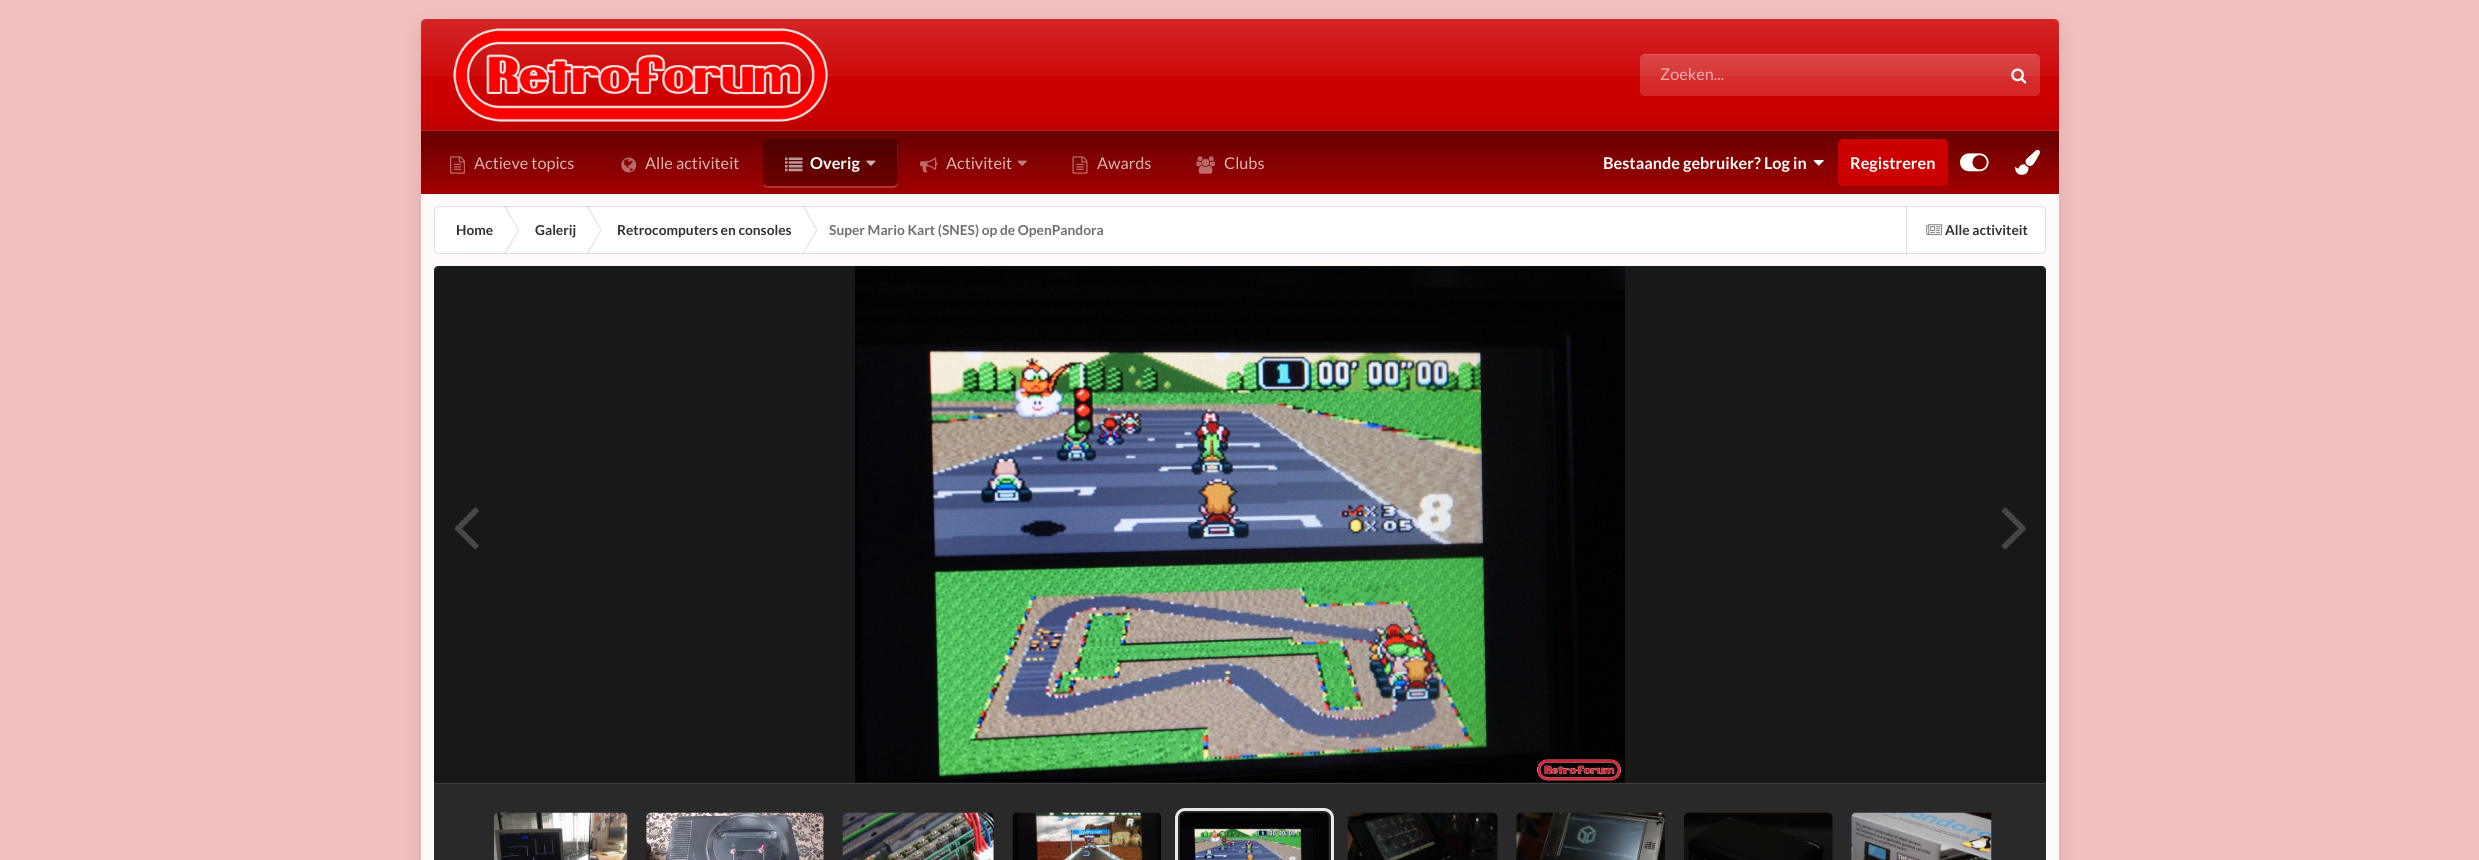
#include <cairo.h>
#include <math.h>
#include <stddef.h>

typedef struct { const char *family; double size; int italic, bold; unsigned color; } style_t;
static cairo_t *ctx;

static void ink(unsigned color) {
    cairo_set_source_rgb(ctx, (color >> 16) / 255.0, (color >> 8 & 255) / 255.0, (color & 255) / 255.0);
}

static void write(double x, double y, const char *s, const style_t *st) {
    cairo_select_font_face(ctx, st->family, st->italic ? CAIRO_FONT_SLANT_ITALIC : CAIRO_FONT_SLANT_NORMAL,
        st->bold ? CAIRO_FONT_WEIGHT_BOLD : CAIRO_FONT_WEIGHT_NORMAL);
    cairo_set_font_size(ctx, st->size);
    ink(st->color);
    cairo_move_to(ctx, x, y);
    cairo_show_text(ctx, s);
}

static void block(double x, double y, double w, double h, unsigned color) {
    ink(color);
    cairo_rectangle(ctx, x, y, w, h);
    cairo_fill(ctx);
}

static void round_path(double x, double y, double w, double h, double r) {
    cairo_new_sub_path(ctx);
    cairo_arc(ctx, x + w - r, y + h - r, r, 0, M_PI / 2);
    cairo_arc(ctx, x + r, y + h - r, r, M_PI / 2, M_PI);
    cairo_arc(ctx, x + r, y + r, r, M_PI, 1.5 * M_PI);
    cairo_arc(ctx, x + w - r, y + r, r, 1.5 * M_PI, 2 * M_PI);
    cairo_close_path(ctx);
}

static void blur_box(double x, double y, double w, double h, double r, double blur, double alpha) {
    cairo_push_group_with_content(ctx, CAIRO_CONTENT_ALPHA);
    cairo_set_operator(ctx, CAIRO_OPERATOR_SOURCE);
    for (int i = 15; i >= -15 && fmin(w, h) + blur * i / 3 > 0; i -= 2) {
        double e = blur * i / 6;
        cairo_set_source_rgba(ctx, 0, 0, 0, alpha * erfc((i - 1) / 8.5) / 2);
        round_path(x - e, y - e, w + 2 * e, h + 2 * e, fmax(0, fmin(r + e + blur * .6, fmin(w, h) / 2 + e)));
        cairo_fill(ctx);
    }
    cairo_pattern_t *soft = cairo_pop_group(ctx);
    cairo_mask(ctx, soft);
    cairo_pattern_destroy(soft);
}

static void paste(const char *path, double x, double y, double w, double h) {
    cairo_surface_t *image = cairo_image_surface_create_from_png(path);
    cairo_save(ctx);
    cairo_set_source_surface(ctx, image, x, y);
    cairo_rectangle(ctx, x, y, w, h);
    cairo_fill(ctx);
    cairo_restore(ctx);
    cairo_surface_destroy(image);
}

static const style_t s1 = {"Lato", 16.25, 0, 0, 0xefaeae};
static const style_t s2 = {"Lato", 16.25, 0, 0, 0xdbb3b3};
static const style_t s3 = {"Lato", 16.25, 0, 1, 0xffffff};
static const style_t s4 = {"Lato", 13.75, 0, 1, 0x313131};
static const style_t s5 = {"Lato", 13.75, 0, 1, 0x6f6f6f};

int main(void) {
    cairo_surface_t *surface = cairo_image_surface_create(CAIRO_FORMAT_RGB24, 2479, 860);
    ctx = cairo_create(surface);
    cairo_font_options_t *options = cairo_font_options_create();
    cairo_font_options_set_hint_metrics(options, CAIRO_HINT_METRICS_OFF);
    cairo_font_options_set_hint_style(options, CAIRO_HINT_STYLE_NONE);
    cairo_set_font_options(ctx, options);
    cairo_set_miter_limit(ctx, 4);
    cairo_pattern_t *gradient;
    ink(0xf2bfbf);
    cairo_paint(ctx);
    cairo_save(ctx);
    cairo_set_fill_rule(ctx, CAIRO_FILL_RULE_EVEN_ODD);
    cairo_new_path(ctx);
    cairo_move_to(ctx, 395, 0);
    cairo_line_to(ctx, 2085, 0);
    cairo_line_to(ctx, 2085, 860);
    cairo_line_to(ctx, 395, 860);
    cairo_close_path(ctx);
    cairo_move_to(ctx, 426, 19);
    cairo_line_to(ctx, 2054, 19);
    cairo_curve_to(ctx, 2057, 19, 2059, 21, 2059, 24);
    cairo_line_to(ctx, 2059, 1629);
    cairo_curve_to(ctx, 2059, 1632, 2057, 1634, 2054, 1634);
    cairo_line_to(ctx, 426, 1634);
    cairo_curve_to(ctx, 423, 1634, 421, 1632, 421, 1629);
    cairo_line_to(ctx, 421, 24);
    cairo_curve_to(ctx, 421, 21, 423, 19, 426, 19);
    cairo_close_path(ctx);
    cairo_clip(ctx);
    ink(0x000000);
    blur_box(426, 31, 1628, 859, 0, 10, 0.2);
    cairo_restore(ctx);
    cairo_set_source_rgba(ctx, 1, 1, 1, 0.92);
    round_path(421, 19, 1638, 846, 5);
    cairo_fill(ctx);
    ink(0xcc0000);
    cairo_new_path(ctx);
    cairo_move_to(ctx, 426, 19);
    cairo_line_to(ctx, 2054, 19);
    cairo_curve_to(ctx, 2057, 19, 2059, 21, 2059, 24);
    cairo_line_to(ctx, 2059, 131);
    cairo_line_to(ctx, 421, 131);
    cairo_line_to(ctx, 421, 24);
    cairo_curve_to(ctx, 421, 21, 423, 19, 426, 19);
    cairo_close_path(ctx);
    cairo_fill(ctx);
    gradient = cairo_pattern_create_linear(1240, 19, 1240, 131);
    cairo_pattern_add_color_stop_rgba(gradient, 0, 1, 1, 1, 0.15);
    cairo_pattern_add_color_stop_rgba(gradient, 0.5, 1, 1, 1, 0.04);
    cairo_pattern_add_color_stop_rgba(gradient, 0.5, 1, 1, 1, 0.07);
    cairo_pattern_add_color_stop_rgba(gradient, 0.51, 1, 1, 1, 0.07);
    cairo_pattern_add_color_stop_rgba(gradient, 0.51, 1, 1, 1, 0);
    cairo_pattern_add_color_stop_rgba(gradient, 0.75, 0, 0, 0, 0);
    cairo_pattern_add_color_stop_rgba(gradient, 1, 0, 0, 0, 0.08);
    cairo_set_source(ctx, gradient);
    cairo_pattern_destroy(gradient);
    cairo_new_path(ctx);
    cairo_move_to(ctx, 426, 19);
    cairo_line_to(ctx, 2054, 19);
    cairo_curve_to(ctx, 2057, 19, 2059, 21, 2059, 24);
    cairo_line_to(ctx, 2059, 131);
    cairo_line_to(ctx, 421, 131);
    cairo_line_to(ctx, 421, 24);
    cairo_curve_to(ctx, 421, 21, 423, 19, 426, 19);
    cairo_close_path(ctx);
    cairo_fill(ctx);
    block(421, 130, 1638, 1, 0xc31a1a);
    paste("pic1.png", 453, 28, 375, 94);
    cairo_set_source_rgba(ctx, 1, 1, 1, 0.15);
    round_path(1640, 54, 400, 42, 5);
    cairo_fill(ctx);
    gradient = cairo_pattern_create_linear(1840, 54, 1840, 96);
    cairo_pattern_add_color_stop_rgba(gradient, 0, 1, 1, 1, 0.08);
    cairo_pattern_add_color_stop_rgba(gradient, 1, 1, 1, 1, 0);
    cairo_set_source(ctx, gradient);
    cairo_pattern_destroy(gradient);
    round_path(1640, 54, 400, 42, 5);
    cairo_fill(ctx);
    cairo_set_source_rgba(ctx, 1, 1, 1, 0.1);
    cairo_new_path(ctx);
    cairo_move_to(ctx, 1645, 55);
    cairo_line_to(ctx, 2035, 55);
    cairo_curve_to(ctx, 2038, 55, 2040, 57, 2040, 60);
    cairo_line_to(ctx, 2040, 59);
    cairo_curve_to(ctx, 2040, 56, 2038, 54, 2035, 54);
    cairo_line_to(ctx, 1645, 54);
    cairo_curve_to(ctx, 1642, 54, 1640, 56, 1640, 59);
    cairo_line_to(ctx, 1640, 60);
    cairo_curve_to(ctx, 1640, 57, 1642, 55, 1645, 55);
    cairo_close_path(ctx);
    cairo_fill(ctx);
    write(1660, 80, "Zoeken...", &s1);
    paste("pic2.png", 2011, 68, 16, 16);
    gradient = cairo_pattern_create_linear(1240, 131, 1240, 194);
    cairo_pattern_add_color_stop_rgba(gradient, 0, 0.4, 0, 0, 1);
    cairo_pattern_add_color_stop_rgba(gradient, 1, 0.639, 0, 0, 1);
    cairo_set_source(ctx, gradient);
    cairo_pattern_destroy(gradient);
    cairo_rectangle(ctx, 421, 131, 1638, 63);
    cairo_fill(ctx);
    paste("pic3.png", 450, 156, 15, 18);
    write(474, 169, "Actieve topics", &s2);
    paste("pic4.png", 621, 157, 16, 16);
    write(645, 169, "Alle activiteit", &s2);
    cairo_set_source_rgba(ctx, 1, 1, 1, 0.2);
    cairo_new_path(ctx);
    cairo_move_to(ctx, 763, 183);
    cairo_curve_to(ctx, 763, 186, 765, 188, 768, 188);
    cairo_line_to(ctx, 893, 188);
    cairo_curve_to(ctx, 896, 188, 898, 186, 898, 183);
    cairo_line_to(ctx, 898, 145);
    cairo_line_to(ctx, 897, 143);
    cairo_line_to(ctx, 898, 181);
    cairo_curve_to(ctx, 898, 184, 895, 186, 892, 186);
    cairo_line_to(ctx, 768, 186);
    cairo_curve_to(ctx, 766, 186, 764, 185, 763, 183);
    cairo_close_path(ctx);
    cairo_fill(ctx);
    cairo_set_source_rgba(ctx, 0, 0, 0, 0.3);
    round_path(763, 139, 135, 47, 5);
    cairo_fill(ctx);
    paste("pic5.png", 785, 157, 18, 15);
    write(810, 169, "Overig", &s3);
    paste("pic6.png", 866, 160, 10, 6);
    paste("pic7.png", 920, 157, 18, 16);
    write(946, 169, "Activiteit", &s2);
    paste("pic8.png", 1017, 160, 10, 6);
    paste("pic9.png", 1072, 156, 16, 18);
    write(1097, 169, "Awards", &s2);
    paste("pic10.png", 1196, 156, 19, 18);
    write(1224, 169, "Clubs", &s2);
    write(1603, 169, "Bestaande gebruiker? Log in", &s3);
    paste("pic11.png", 1813, 160, 11, 6);
    ink(0xcc0000);
    round_path(1838, 139, 110, 47, 5);
    cairo_fill(ctx);
    write(1850, 169, "Registreren", &s3);
    paste("pic12.png", 1960, 153, 29, 19);
    paste("pic13.png", 2015, 149, 25, 26);
    round_path(434, 206, 1612, 48, 5);
    cairo_fill(ctx);
    ink(0xe0e0e0);
    cairo_new_path(ctx);
    cairo_move_to(ctx, 504, 206);
    cairo_line_to(ctx, 505.5, 206);
    cairo_line_to(ctx, 519, 230);
    cairo_line_to(ctx, 518, 230);
    cairo_close_path(ctx);
    cairo_move_to(ctx, 504, 254);
    cairo_line_to(ctx, 505.5, 254);
    cairo_line_to(ctx, 519, 230);
    cairo_line_to(ctx, 518, 230);
    cairo_close_path(ctx);
    cairo_fill(ctx);
    cairo_new_path(ctx);
    cairo_move_to(ctx, 586.5, 206);
    cairo_line_to(ctx, 588, 206);
    cairo_line_to(ctx, 601.5, 230);
    cairo_line_to(ctx, 600.5, 230);
    cairo_close_path(ctx);
    cairo_move_to(ctx, 586.5, 254);
    cairo_line_to(ctx, 588, 254);
    cairo_line_to(ctx, 601.5, 230);
    cairo_line_to(ctx, 600.5, 230);
    cairo_close_path(ctx);
    cairo_fill(ctx);
    cairo_new_path(ctx);
    cairo_move_to(ctx, 802.5, 206);
    cairo_line_to(ctx, 803.5, 206);
    cairo_line_to(ctx, 817.5, 230);
    cairo_line_to(ctx, 816, 230);
    cairo_close_path(ctx);
    cairo_move_to(ctx, 802.5, 254);
    cairo_line_to(ctx, 803.5, 254);
    cairo_line_to(ctx, 817.5, 230);
    cairo_line_to(ctx, 816, 230);
    cairo_close_path(ctx);
    cairo_fill(ctx);
    block(1906, 206, 1, 48, 0xe0e0e0);
    paste("pic14.png", 1926, 224, 16, 11);
    round_path(434.5, 206.5, 1611, 47, 4.5);
    cairo_set_source_rgba(ctx, 0.4, 0.4, 0.4, 0.2);
    cairo_set_line_width(ctx, 1);
    cairo_stroke(ctx);
    write(456, 235, "Home", &s4);
    write(535, 235, "Galerij", &s4);
    write(617, 235, "Retrocomputers en consoles", &s4);
    write(829, 235, "Super Mario Kart (SNES) op de OpenPandora", &s5);
    write(1945, 235, "Alle activiteit", &s4);
    ink(0x3b3b3b);
    cairo_new_path(ctx);
    cairo_move_to(ctx, 439, 266);
    cairo_line_to(ctx, 2041, 266);
    cairo_curve_to(ctx, 2044, 266, 2046, 268, 2046, 271);
    cairo_line_to(ctx, 2046, 783);
    cairo_line_to(ctx, 434, 783);
    cairo_line_to(ctx, 434, 271);
    cairo_curve_to(ctx, 434, 268, 436, 266, 439, 266);
    cairo_close_path(ctx);
    cairo_fill(ctx);
    cairo_set_source_rgba(ctx, 0, 0, 0, 0.6);
    cairo_new_path(ctx);
    cairo_move_to(ctx, 439, 266);
    cairo_line_to(ctx, 2041, 266);
    cairo_curve_to(ctx, 2044, 266, 2046, 268, 2046, 271);
    cairo_line_to(ctx, 2046, 783);
    cairo_line_to(ctx, 434, 783);
    cairo_line_to(ctx, 434, 271);
    cairo_curve_to(ctx, 434, 268, 436, 266, 439, 266);
    cairo_close_path(ctx);
    cairo_fill(ctx);
    paste("pic15.png", 855, 266, 770, 517);
    paste("pic16.png", 454, 507, 25, 43);
    paste("pic17.png", 2001, 507, 25, 43);
    block(434, 784, 1612, 76, 0x292929);
    block(434, 783, 1612, 1, 0x3e3e3e);
    ink(0x141414);
    round_path(494, 813, 134, 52, 5);
    cairo_fill(ctx);
    cairo_set_source_rgba(ctx, 0.231, 0.231, 0.231, 0.3);
    round_path(494, 813, 134, 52, 5);
    cairo_fill(ctx);
    paste("pic18.png", 493, 812, 135, 48);
    ink(0x141414);
    round_path(646, 813, 178, 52, 5);
    cairo_fill(ctx);
    cairo_set_source_rgba(ctx, 0.231, 0.231, 0.231, 0.3);
    round_path(646, 813, 178, 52, 5);
    cairo_fill(ctx);
    paste("pic19.png", 646, 812, 178, 48);
    ink(0x141414);
    round_path(843, 813, 151, 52, 5);
    cairo_fill(ctx);
    cairo_set_source_rgba(ctx, 0.231, 0.231, 0.231, 0.3);
    round_path(843, 813, 151, 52, 5);
    cairo_fill(ctx);
    paste("pic20.png", 842, 812, 152, 48);
    paste("pic21.png", 1012, 812, 149, 48);
    ink(0x141414);
    round_path(1180, 813, 149, 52, 5);
    cairo_fill(ctx);
    cairo_set_source_rgba(ctx, 0.231, 0.231, 0.231, 0.3);
    round_path(1180, 813, 149, 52, 5);
    cairo_fill(ctx);
    round_path(1176.5, 809.5, 156, 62, 8.5);
    ink(0xe8e8e8);
    cairo_set_line_width(ctx, 3);
    cairo_stroke(ctx);
    paste("pic22.png", 1180, 812, 149, 48);
    ink(0x141414);
    round_path(1348, 813, 150, 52, 5);
    cairo_fill(ctx);
    cairo_set_source_rgba(ctx, 0.231, 0.231, 0.231, 0.3);
    round_path(1348, 813, 150, 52, 5);
    cairo_fill(ctx);
    paste("pic23.png", 1347, 812, 151, 48);
    ink(0x141414);
    round_path(1516, 813, 149, 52, 5);
    cairo_fill(ctx);
    cairo_set_source_rgba(ctx, 0.231, 0.231, 0.231, 0.3);
    round_path(1516, 813, 149, 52, 5);
    cairo_fill(ctx);
    paste("pic24.png", 1516, 812, 149, 48);
    ink(0x141414);
    round_path(1684, 813, 149, 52, 5);
    cairo_fill(ctx);
    cairo_set_source_rgba(ctx, 0.231, 0.231, 0.231, 0.3);
    round_path(1684, 813, 149, 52, 5);
    cairo_fill(ctx);
    paste("pic25.png", 1684, 812, 149, 48);
    ink(0x141414);
    cairo_new_path(ctx);
    cairo_move_to(ctx, 1856, 813);
    cairo_line_to(ctx, 1991, 813);
    cairo_line_to(ctx, 1991, 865);
    cairo_line_to(ctx, 1856, 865);
    cairo_curve_to(ctx, 1853, 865, 1851, 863, 1851, 860);
    cairo_line_to(ctx, 1851, 818);
    cairo_curve_to(ctx, 1851, 815, 1853, 813, 1856, 813);
    cairo_close_path(ctx);
    cairo_fill(ctx);
    cairo_set_source_rgba(ctx, 0.231, 0.231, 0.231, 0.3);
    cairo_new_path(ctx);
    cairo_move_to(ctx, 1856, 813);
    cairo_line_to(ctx, 1991, 813);
    cairo_line_to(ctx, 1991, 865);
    cairo_line_to(ctx, 1856, 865);
    cairo_curve_to(ctx, 1853, 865, 1851, 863, 1851, 860);
    cairo_line_to(ctx, 1851, 818);
    cairo_curve_to(ctx, 1851, 815, 1853, 813, 1856, 813);
    cairo_close_path(ctx);
    cairo_fill(ctx);
    paste("pic26.png", 1851, 812, 141, 48);
    cairo_surface_write_to_png(surface, "screenshot.png");
    cairo_font_options_destroy(options);
    cairo_destroy(ctx);
    cairo_surface_destroy(surface);
    return 0;
}
